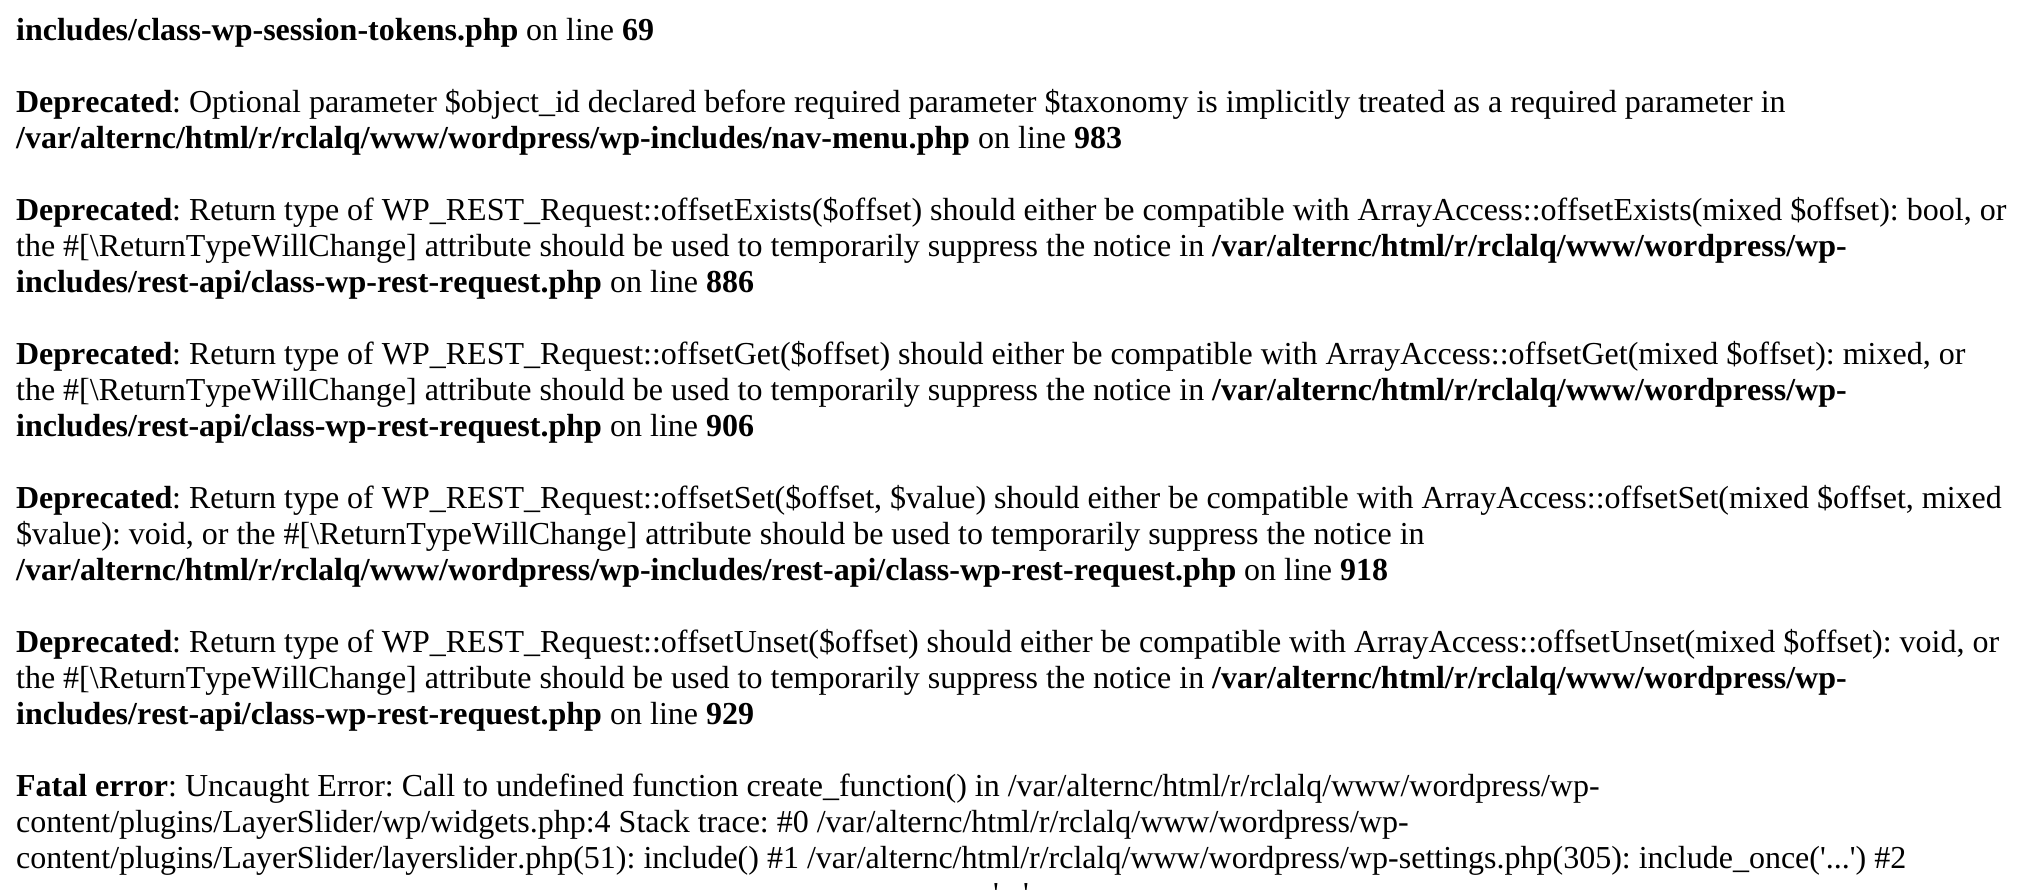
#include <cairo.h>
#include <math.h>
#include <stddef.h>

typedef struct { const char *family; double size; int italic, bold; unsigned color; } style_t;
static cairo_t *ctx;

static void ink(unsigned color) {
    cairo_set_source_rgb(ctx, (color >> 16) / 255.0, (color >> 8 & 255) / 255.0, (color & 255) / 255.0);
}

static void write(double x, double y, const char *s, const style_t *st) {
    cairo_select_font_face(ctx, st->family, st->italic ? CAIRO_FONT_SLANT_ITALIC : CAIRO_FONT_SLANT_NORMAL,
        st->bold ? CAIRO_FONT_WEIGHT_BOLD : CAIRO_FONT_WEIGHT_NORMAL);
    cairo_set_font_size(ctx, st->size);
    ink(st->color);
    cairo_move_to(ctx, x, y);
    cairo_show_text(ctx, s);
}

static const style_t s1 = {"Liberation Serif", 32, 0, 1, 0x000000};
static const style_t s2 = {"Liberation Serif", 32, 0, 0, 0x000000};

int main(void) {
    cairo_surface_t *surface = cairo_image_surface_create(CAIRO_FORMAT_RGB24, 2028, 890);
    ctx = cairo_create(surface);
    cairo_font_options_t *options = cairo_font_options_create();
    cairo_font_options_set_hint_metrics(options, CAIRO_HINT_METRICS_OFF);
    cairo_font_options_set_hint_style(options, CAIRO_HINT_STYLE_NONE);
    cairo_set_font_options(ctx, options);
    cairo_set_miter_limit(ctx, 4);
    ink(0xffffff);
    cairo_paint(ctx);
    write(16, 40, "includes/class-wp-session-tokens.php", &s1);
    write(526, 40, "on line", &s2);
    write(622, 40, "69", &s1);
    write(16, 112, "Deprecated", &s1);
    write(172, 112, ": Optional parameter $object_id declared before required parameter $taxonomy is implicitly treated as a required parameter in", &s2);
    write(16, 148, "/var/alternc/html/r/rclalq/www/wordpress/wp-includes/nav-menu.php", &s1);
    write(978, 148, "on line", &s2);
    write(1074, 148, "983", &s1);
    write(16, 220, "Deprecated", &s1);
    write(172, 220, ": Return type of WP_REST_Request::offsetExists($offset) should either be compatible with ArrayAccess::offsetExists(mixed $offset): bool, or", &s2);
    write(16, 256, "the #[\\ReturnTypeWillChange] attribute should be used to temporarily suppress the notice in", &s2);
    write(1212, 256, "/var/alternc/html/r/rclalq/www/wordpress/wp-", &s1);
    write(16, 292, "includes/rest-api/class-wp-rest-request.php", &s1);
    write(610, 292, "on line", &s2);
    write(706, 292, "886", &s1);
    write(16, 364, "Deprecated", &s1);
    write(172, 364, ": Return type of WP_REST_Request::offsetGet($offset) should either be compatible with ArrayAccess::offsetGet(mixed $offset): mixed, or", &s2);
    write(16, 400, "the #[\\ReturnTypeWillChange] attribute should be used to temporarily suppress the notice in", &s2);
    write(1212, 400, "/var/alternc/html/r/rclalq/www/wordpress/wp-", &s1);
    write(16, 436, "includes/rest-api/class-wp-rest-request.php", &s1);
    write(610, 436, "on line", &s2);
    write(706, 436, "906", &s1);
    write(16, 508, "Deprecated", &s1);
    write(172, 508, ": Return type of WP_REST_Request::offsetSet($offset, $value) should either be compatible with ArrayAccess::offsetSet(mixed $offset, mixed", &s2);
    write(16, 544, "$value): void, or the #[\\ReturnTypeWillChange] attribute should be used to temporarily suppress the notice in", &s2);
    write(16, 580, "/var/alternc/html/r/rclalq/www/wordpress/wp-includes/rest-api/class-wp-rest-request.php", &s1);
    write(1244, 580, "on line", &s2);
    write(1340, 580, "918", &s1);
    write(16, 652, "Deprecated", &s1);
    write(172, 652, ": Return type of WP_REST_Request::offsetUnset($offset) should either be compatible with ArrayAccess::offsetUnset(mixed $offset): void, or", &s2);
    write(16, 688, "the #[\\ReturnTypeWillChange] attribute should be used to temporarily suppress the notice in", &s2);
    write(1212, 688, "/var/alternc/html/r/rclalq/www/wordpress/wp-", &s1);
    write(16, 724, "includes/rest-api/class-wp-rest-request.php", &s1);
    write(610, 724, "on line", &s2);
    write(706, 724, "929", &s1);
    write(16, 796, "Fatal error", &s1);
    write(168, 796, ": Uncaught Error: Call to undefined function create_function() in /var/alternc/html/r/rclalq/www/wordpress/wp-", &s2);
    write(16, 832, "content/plugins/LayerSlider/wp/widgets.php:4 Stack trace: #0 /var/alternc/html/r/rclalq/www/wordpress/wp-", &s2);
    write(16, 868, "content/plugins/LayerSlider/layerslider.php(51): include() #1 /var/alternc/html/r/rclalq/www/wordpress/wp-settings.php(305): include_once('...') #2", &s2);
    write(993, 904, "'", &s2);
    write(1023, 904, "'", &s2);
    cairo_surface_write_to_png(surface, "screenshot.png");
    cairo_font_options_destroy(options);
    cairo_destroy(ctx);
    cairo_surface_destroy(surface);
    return 0;
}
